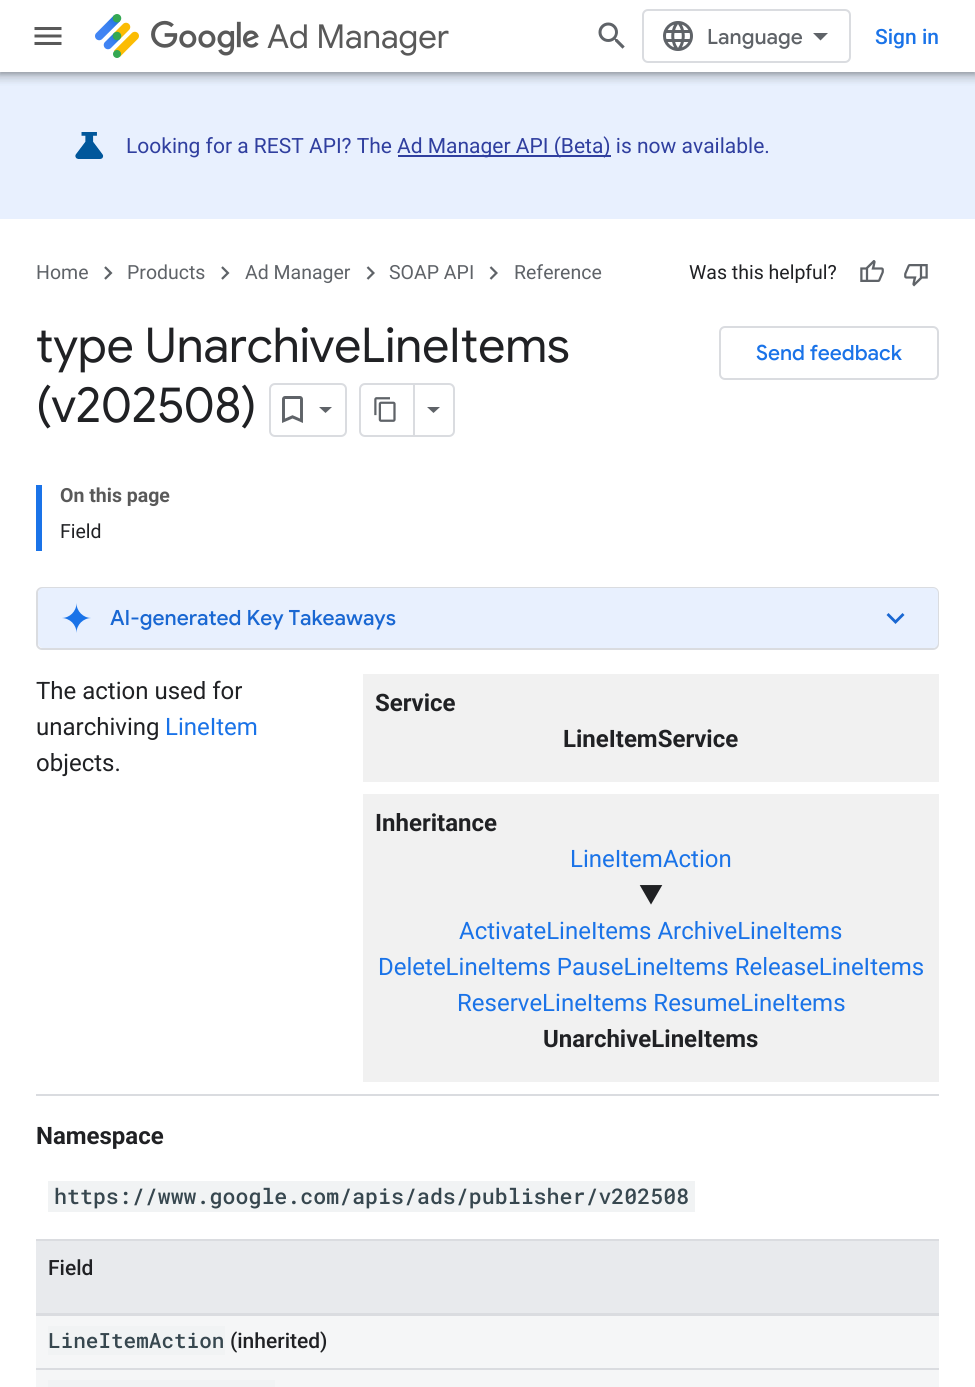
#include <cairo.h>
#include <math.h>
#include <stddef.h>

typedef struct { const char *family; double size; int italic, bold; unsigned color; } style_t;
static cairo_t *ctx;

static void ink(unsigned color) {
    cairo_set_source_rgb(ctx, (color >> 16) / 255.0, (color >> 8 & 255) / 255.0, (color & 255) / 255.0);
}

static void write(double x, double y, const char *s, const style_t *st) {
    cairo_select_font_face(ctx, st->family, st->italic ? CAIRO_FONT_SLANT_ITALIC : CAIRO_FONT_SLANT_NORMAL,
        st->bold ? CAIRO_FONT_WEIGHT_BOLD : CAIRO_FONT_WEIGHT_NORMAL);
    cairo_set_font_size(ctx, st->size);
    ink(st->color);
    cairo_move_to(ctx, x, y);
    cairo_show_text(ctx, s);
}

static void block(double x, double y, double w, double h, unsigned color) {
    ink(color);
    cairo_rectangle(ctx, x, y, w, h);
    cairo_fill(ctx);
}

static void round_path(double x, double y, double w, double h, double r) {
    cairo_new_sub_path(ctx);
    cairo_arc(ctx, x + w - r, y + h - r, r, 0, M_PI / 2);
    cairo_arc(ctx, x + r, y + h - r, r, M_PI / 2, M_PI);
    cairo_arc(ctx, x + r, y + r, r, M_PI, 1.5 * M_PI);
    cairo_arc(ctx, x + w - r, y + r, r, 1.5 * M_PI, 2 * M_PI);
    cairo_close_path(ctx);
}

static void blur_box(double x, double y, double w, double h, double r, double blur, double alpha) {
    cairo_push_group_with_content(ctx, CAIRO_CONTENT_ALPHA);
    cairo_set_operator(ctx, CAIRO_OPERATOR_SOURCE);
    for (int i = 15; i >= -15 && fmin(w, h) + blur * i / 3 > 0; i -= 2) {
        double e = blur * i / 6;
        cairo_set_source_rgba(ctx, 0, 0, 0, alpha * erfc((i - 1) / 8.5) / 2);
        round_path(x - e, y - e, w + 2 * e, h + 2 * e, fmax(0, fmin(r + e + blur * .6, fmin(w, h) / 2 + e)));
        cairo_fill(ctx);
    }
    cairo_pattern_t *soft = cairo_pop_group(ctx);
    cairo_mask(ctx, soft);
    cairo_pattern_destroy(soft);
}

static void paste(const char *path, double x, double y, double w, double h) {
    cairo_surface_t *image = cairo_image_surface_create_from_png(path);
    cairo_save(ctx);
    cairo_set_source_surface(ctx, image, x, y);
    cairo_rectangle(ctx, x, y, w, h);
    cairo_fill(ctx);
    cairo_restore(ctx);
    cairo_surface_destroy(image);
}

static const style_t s1 = {"Google Sans", 33, 0, 0, 0x595959};
static const style_t s2 = {"Google Sans Medium", 21, 0, 0, 0x5f6368};
static const style_t s3 = {"Roboto Medium", 21, 0, 0, 0x1a73e8};
static const style_t s4 = {"Roboto", 21, 0, 0, 0x303f9f};
static const style_t s5 = {"Roboto", 19.5, 0, 0, 0x5f6368};
static const style_t s6 = {"Roboto", 19.5, 0, 0, 0x202124};
static const style_t s7 = {"Google Sans", 48, 0, 0, 0x202124};
static const style_t s8 = {"Google Sans Medium", 21, 0, 0, 0x1a73e8};
static const style_t s9 = {"Roboto", 19.5, 0, 1, 0x595959};
static const style_t s10 = {"Google Sans Medium", 21, 0, 0, 0x1967d2};
static const style_t s11 = {"Roboto", 24, 0, 0, 0x202124};
static const style_t s12 = {"Roboto", 24, 0, 0, 0x1a73e8};
static const style_t s13 = {"Roboto", 24, 0, 1, 0x202124};
static const style_t s14 = {"Noto Sans JP", 24, 0, 0, 0x202124};
static const style_t s15 = {"Roboto Mono Medium", 21.6, 0, 0, 0x37474f};
static const style_t s16 = {"Roboto Medium", 21, 0, 0, 0x202124};
static const style_t s17 = {"Roboto Mono Medium", 21, 0, 0, 0x37474f};

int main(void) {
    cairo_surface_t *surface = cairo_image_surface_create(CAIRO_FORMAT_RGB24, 975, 1387);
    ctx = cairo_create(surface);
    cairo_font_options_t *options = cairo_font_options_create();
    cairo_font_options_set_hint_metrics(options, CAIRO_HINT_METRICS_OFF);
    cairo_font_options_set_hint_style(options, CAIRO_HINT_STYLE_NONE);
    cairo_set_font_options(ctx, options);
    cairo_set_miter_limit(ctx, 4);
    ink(0xffffff);
    cairo_paint(ctx);
    block(0, 72, 975, 147, 0xe8f0fe);
    ink(0x3c4043);
    blur_box(-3, 0, 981, 78, 0, 4.5, 0.15);
    blur_box(0, 2, 975, 72, 0, 1.5, 0.3);
    blur_box(-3, 72, 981, 6, 0, 4.5, 0.15);
    block(0, 0, 975, 72, 0xffffff);
    paste("pic1.png", 34, 27, 28, 18);
    paste("pic2.png", 95, 14, 44, 44);
    paste("pic3.png", 151, 20, 108, 36);
    write(267, 48, "Ad Manager", &s1);
    paste("pic4.png", 598, 22, 27, 27);
    round_path(643, 10, 207, 52, 5);
    ink(0xdadce0);
    cairo_stroke(ctx);
    paste("pic5.png", 663, 21, 30, 30);
    write(707, 44, "Language", &s2);
    cairo_new_path(ctx);
    cairo_move_to(ctx, 820.5, 40.5);
    cairo_line_to(ctx, 813, 33);
    cairo_line_to(ctx, 828, 33);
    cairo_close_path(ctx);
    cairo_fill(ctx);
    write(875, 44, "Sign in", &s3);
    paste("pic6.png", 75, 132, 29, 27);
    write(126, 153, "Looking for a REST API? The", &s4);
    block(398, 155, 213, 2, 0x303f9f);
    write(397, 153, "Ad Manager API (Beta) is now available.", &s4);
    write(36, 279, "Home", &s5);
    paste("pic7.png", 104, 266, 9, 14);
    write(127, 279, "Products", &s5);
    paste("pic7.png", 221, 266, 9, 14);
    write(245, 279, "Ad Manager", &s5);
    paste("pic8.png", 366, 266, 9, 14);
    write(389, 279, "SOAP API", &s5);
    paste("pic8.png", 489, 266, 9, 14);
    write(514, 279, "Reference", &s5);
    write(689, 279, "Was this helpful?", &s6);
    paste("pic9.png", 860, 260, 24, 22);
    paste("pic10.png", 904, 264, 24, 23);
    write(36, 362, "type UnarchiveLineItems", &s7);
    write(36, 422, "(v202508)", &s7);
    round_path(270, 384, 76, 52, 5);
    ink(0xdadce0);
    cairo_stroke(ctx);
    paste("pic11.png", 282, 396, 21, 27);
    ink(0x5f6368);
    cairo_new_path(ctx);
    cairo_move_to(ctx, 319, 407);
    cairo_line_to(ctx, 332, 407);
    cairo_line_to(ctx, 325.5, 413);
    cairo_close_path(ctx);
    cairo_fill(ctx);
    round_path(360, 384, 94, 52, 5);
    ink(0xdadce0);
    cairo_stroke(ctx);
    block(413, 384, 2, 51, 0xdadce0);
    paste("pic12.png", 374, 397, 22, 25);
    ink(0x5f6368);
    cairo_new_path(ctx);
    cairo_move_to(ctx, 427, 407);
    cairo_line_to(ctx, 440, 407);
    cairo_line_to(ctx, 433.5, 413);
    cairo_close_path(ctx);
    cairo_fill(ctx);
    round_path(720, 327, 218, 52, 5);
    ink(0xdadce0);
    cairo_stroke(ctx);
    write(756, 360, "Send feedback", &s8);
    block(36, 485, 6, 66, 0x1a73e8);
    write(60, 502, "On this page", &s9);
    write(60, 538, "Field", &s6);
    round_path(37, 588, 901, 61, 5);
    ink(0xdadce0);
    cairo_stroke(ctx);
    ink(0xe8f0fe);
    round_path(38, 588, 900, 60, 5);
    cairo_fill(ctx);
    paste("pic13.png", 62, 603, 29, 30);
    write(110, 625, "AI-generated Key Takeaways", &s10);
    cairo_new_path(ctx);
    cairo_move_to(ctx, 902.5, 613);
    cairo_line_to(ctx, 904.5, 615);
    cairo_line_to(ctx, 895.5, 624);
    cairo_line_to(ctx, 886.5, 615);
    cairo_line_to(ctx, 888.5, 613);
    cairo_line_to(ctx, 895.5, 620);
    cairo_close_path(ctx);
    cairo_fill(ctx);
    write(36, 699, "The action used for", &s11);
    write(36, 735, "unarchiving", &s11);
    write(165, 735, "LineItem", &s12);
    write(36, 771, "objects.", &s11);
    block(363, 674, 576, 108, 0xf1f1f1);
    write(375, 711, "Service", &s13);
    write(563, 747, "LineItemService", &s13);
    block(363, 794, 576, 288, 0xf1f1f1);
    write(375, 831, "Inheritance", &s13);
    write(570, 867, "LineItemAction", &s12);
    write(639, 903, "▼", &s14);
    write(459, 939, "ActivateLineItems ArchiveLineItems", &s12);
    write(378, 975, "DeleteLineItems PauseLineItems ReleaseLineItems", &s12);
    write(457, 1011, "ReserveLineItems ResumeLineItems", &s12);
    write(543, 1047, "UnarchiveLineItems", &s13);
    block(36, 1094, 903, 2, 0xdadce0);
    write(36, 1144, "Namespace", &s13);
    block(48, 1181, 647, 31, 0xf1f3f4);
    write(54, 1204, "https://www.google.com/apis/ads/publisher/v202508", &s15);
    block(36, 1239, 903, 2, 0xdadce0);
    block(36, 1313, 903, 3, 0xdadce0);
    block(36, 1241, 903, 72, 0xe8eaed);
    write(48, 1275, "Field", &s16);
    block(36, 1368, 903, 2, 0xdadce0);
    block(36, 1316, 903, 52, 0xf5f6f7);
    block(48, 1326, 177, 29, 0xf1f3f4);
    write(48, 1348, "LineItemAction", &s17);
    write(230, 1348, "(inherited)", &s16);
    block(36, 1370, 903, 17, 0xf5f6f7);
    block(48, 1380, 227, 7, 0xf1f3f4);
    cairo_surface_write_to_png(surface, "screenshot.png");
    cairo_font_options_destroy(options);
    cairo_destroy(ctx);
    cairo_surface_destroy(surface);
    return 0;
}
